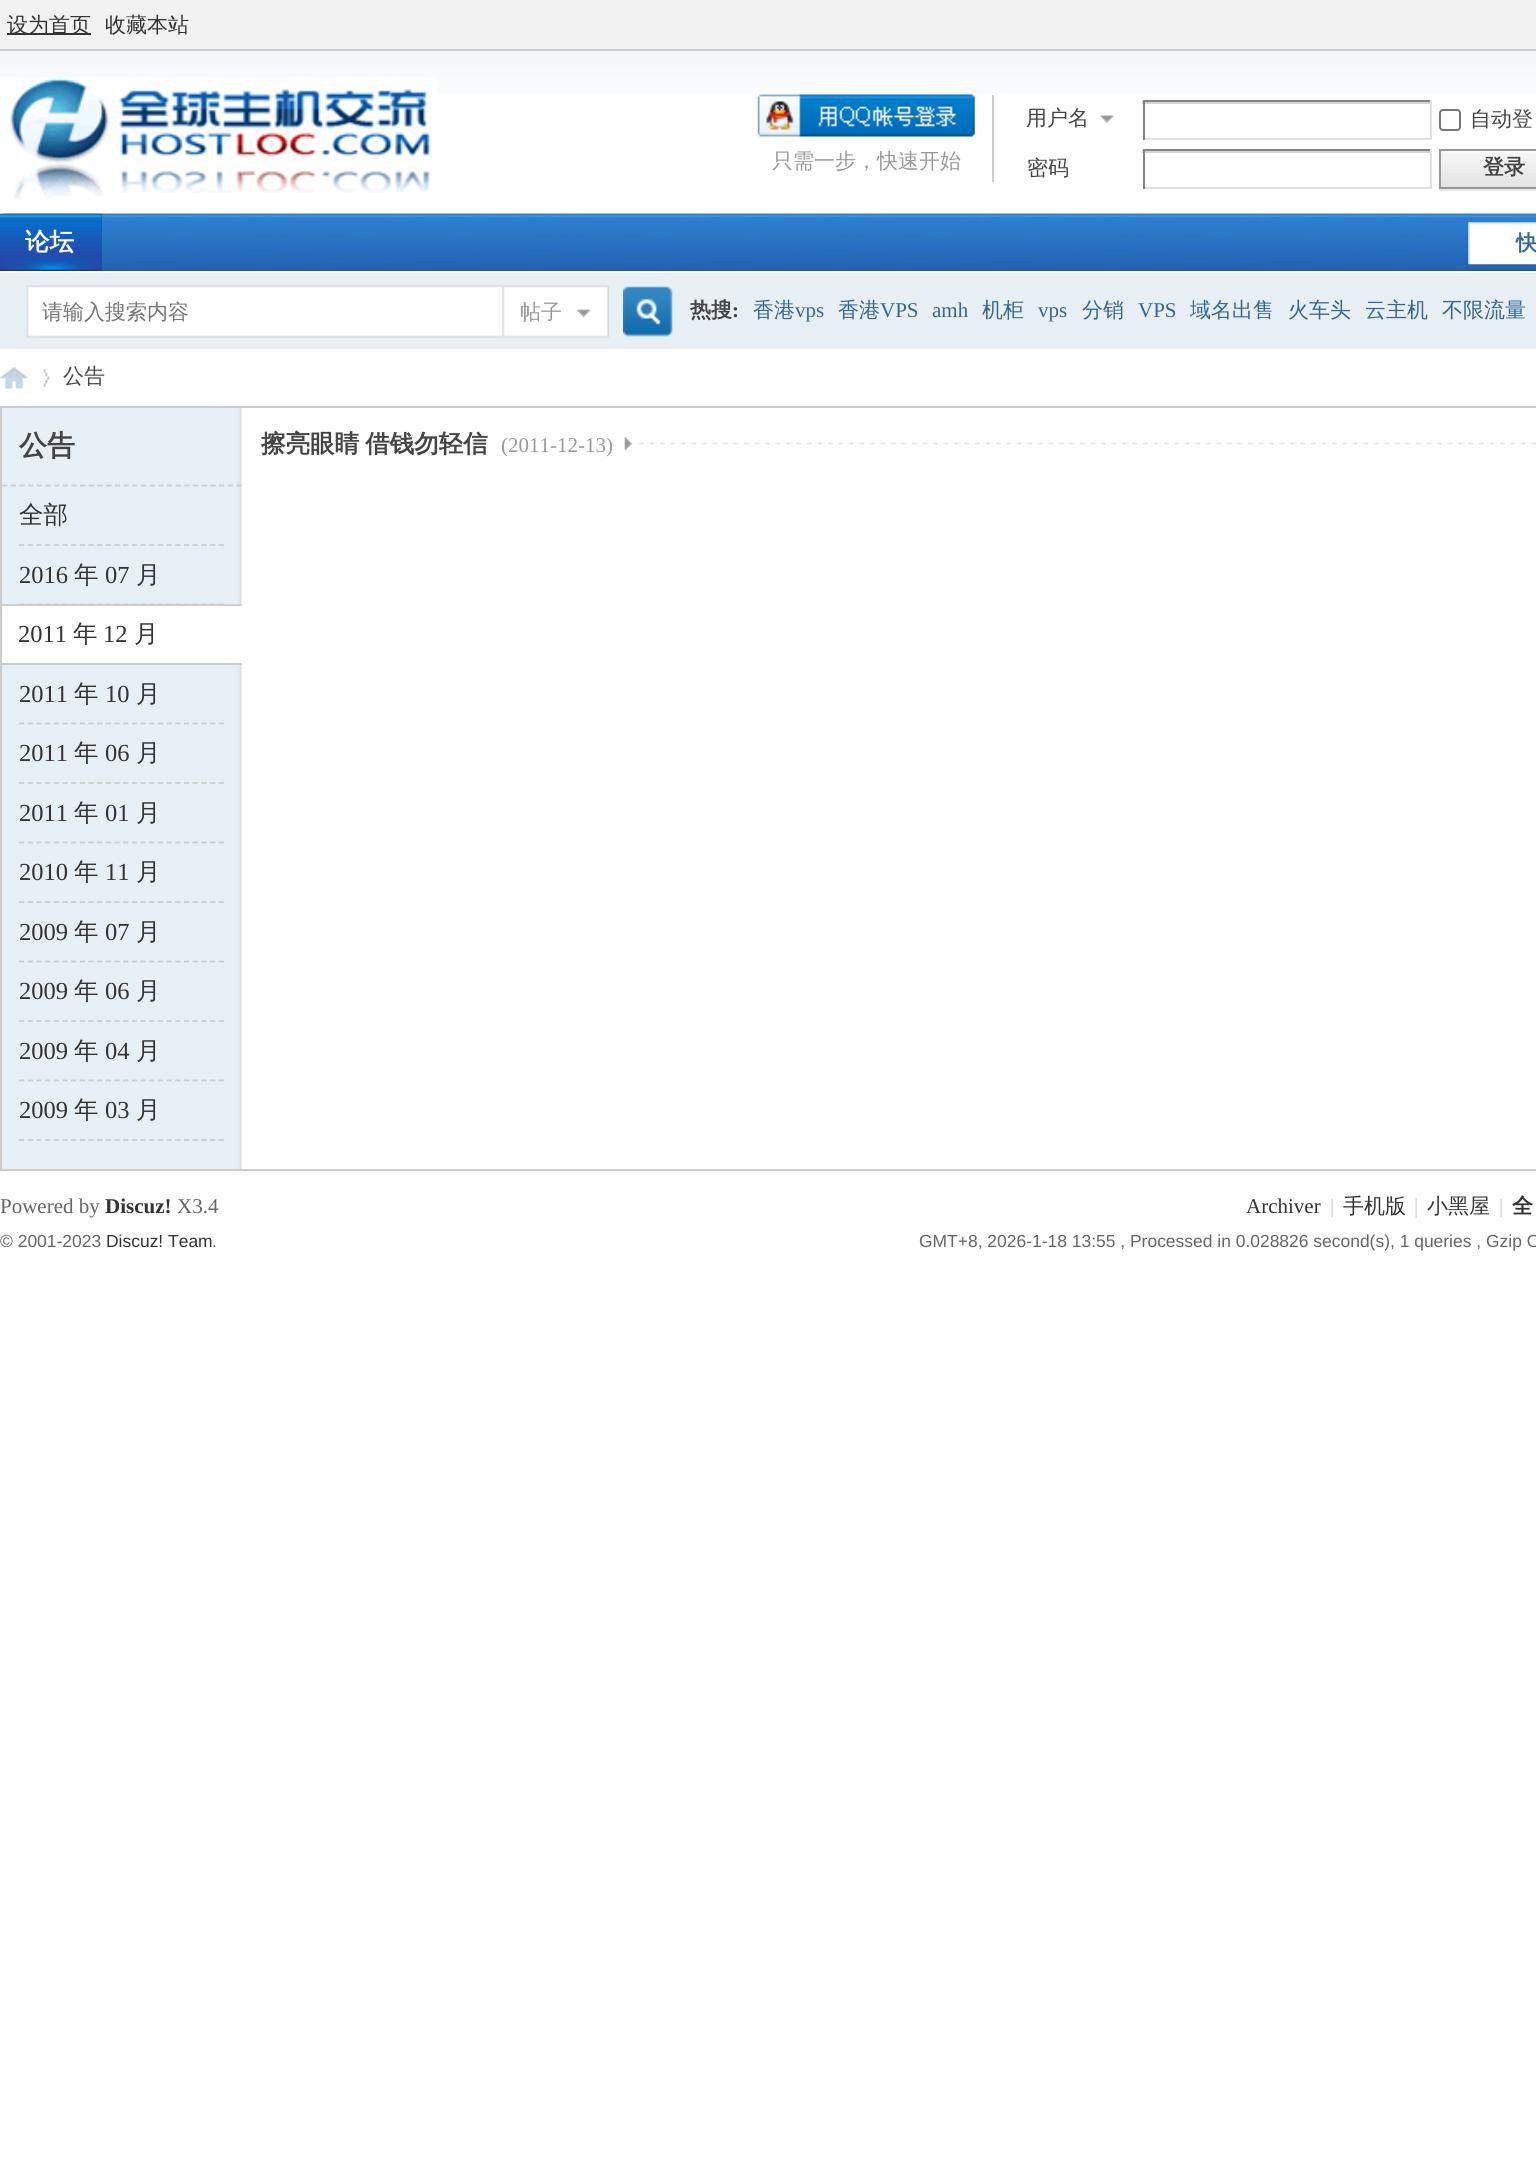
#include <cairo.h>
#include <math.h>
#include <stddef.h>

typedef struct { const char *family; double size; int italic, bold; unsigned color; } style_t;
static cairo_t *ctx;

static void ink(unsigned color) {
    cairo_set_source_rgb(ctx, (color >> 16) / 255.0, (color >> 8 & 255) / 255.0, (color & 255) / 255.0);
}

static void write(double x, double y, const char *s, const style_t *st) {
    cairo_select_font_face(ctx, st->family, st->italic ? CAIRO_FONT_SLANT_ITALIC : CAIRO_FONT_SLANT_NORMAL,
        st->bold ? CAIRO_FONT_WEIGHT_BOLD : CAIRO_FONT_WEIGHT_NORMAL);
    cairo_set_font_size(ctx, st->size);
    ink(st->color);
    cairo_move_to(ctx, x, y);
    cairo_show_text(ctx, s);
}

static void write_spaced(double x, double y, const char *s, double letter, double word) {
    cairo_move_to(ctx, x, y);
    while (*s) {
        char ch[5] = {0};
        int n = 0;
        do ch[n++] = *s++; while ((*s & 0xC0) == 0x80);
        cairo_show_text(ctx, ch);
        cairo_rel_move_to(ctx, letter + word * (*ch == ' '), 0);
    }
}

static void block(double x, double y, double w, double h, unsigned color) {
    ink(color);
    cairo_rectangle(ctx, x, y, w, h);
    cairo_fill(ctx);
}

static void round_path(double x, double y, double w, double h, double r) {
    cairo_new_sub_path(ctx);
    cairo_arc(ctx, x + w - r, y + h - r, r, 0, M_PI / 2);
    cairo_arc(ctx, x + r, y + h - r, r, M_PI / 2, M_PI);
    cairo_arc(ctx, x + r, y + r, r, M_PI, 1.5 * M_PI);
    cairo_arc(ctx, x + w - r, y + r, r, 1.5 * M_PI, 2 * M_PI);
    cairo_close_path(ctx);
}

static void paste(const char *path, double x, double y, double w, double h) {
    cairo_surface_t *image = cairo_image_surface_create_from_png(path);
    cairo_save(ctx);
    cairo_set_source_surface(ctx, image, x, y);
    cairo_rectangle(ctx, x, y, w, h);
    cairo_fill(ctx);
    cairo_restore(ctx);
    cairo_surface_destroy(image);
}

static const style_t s1 = {"WenQuanYi Zen Hei Medium", 21, 0, 0, 0x333333};
static const style_t s2 = {"WenQuanYi Zen Hei Medium", 21, 0, 0, 0x999999};
static const style_t s3 = {"WenQuanYi Zen Hei Medium", 21, 0, 0, 0x444444};
static const style_t s4 = {"WenQuanYi Zen Hei", 21, 0, 1, 0x444444};
static const style_t s5 = {"WenQuanYi Zen Hei", 24.5, 0, 1, 0xffffff};
static const style_t s6 = {"WenQuanYi Zen Hei", 21, 0, 1, 0x336699};
static const style_t s7 = {"WenQuanYi Zen Hei Medium", 21, 0, 0, 0x757575};
static const style_t s8 = {"Liberation Serif", 21, 0, 1, 0x444444};
static const style_t s9 = {"WenQuanYi Zen Hei Medium", 21, 0, 0, 0x336699};
static const style_t s10 = {"Liberation Serif", 21, 0, 0, 0x336699};
static const style_t s11 = {"WenQuanYi Zen Hei", 28, 0, 1, 0x444444};
static const style_t s12 = {"WenQuanYi Zen Hei Medium", 24.5, 0, 0, 0x333333};
static const style_t s13 = {"Liberation Serif", 24.5, 0, 0, 0x333333};
static const style_t s14 = {"Liberation Serif", 21, 0, 0, 0x999999};
static const style_t s15 = {"Liberation Serif", 21, 0, 0, 0x666666};
static const style_t s16 = {"Liberation Serif", 21, 0, 1, 0x333333};
static const style_t s17 = {"Liberation Sans", 17.45, 0, 0, 0x666666};
static const style_t s18 = {"Liberation Sans", 17.45, 0, 0, 0x333333};
static const style_t s19 = {"Liberation Serif", 21, 0, 0, 0x333333};
static const style_t s20 = {"Liberation Serif", 21, 0, 0, 0xcccccc};
static const style_t s21 = {"WenQuanYi Zen Hei", 21, 0, 1, 0x333333};

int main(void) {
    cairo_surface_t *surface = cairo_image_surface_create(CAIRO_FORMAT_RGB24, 1536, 2164);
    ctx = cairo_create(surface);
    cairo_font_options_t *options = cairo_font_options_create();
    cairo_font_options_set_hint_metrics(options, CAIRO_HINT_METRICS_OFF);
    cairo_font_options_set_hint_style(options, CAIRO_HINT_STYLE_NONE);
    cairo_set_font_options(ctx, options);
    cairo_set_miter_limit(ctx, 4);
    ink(0xffffff);
    cairo_paint(ctx);
    paste("pic1.png", 0, 51, 1536, 43);
    block(0, 0, 1536, 49, 0xf2f2f2);
    block(0, 49, 1536, 2, 0xcdcdcd);
    block(7, 33, 84, 2, 0x333333);
    write(7, 32, "设为首页", &s1);
    write(105, 32, "收藏本站", &s1);
    paste("pic2.png", 0, 77, 437, 123);
    block(992, 95, 2, 87, 0xcdcdcd);
    paste("pic3.png", 757, 94, 218, 43);
    write(772, 168, "只需一步，快速开始", &s2);
    paste("pic4.png", 1100, 115, 14, 8);
    write(1026, 125, "用户名", &s3);
    block(1142, 101, 290, 3, 0xd4d4d4);
    block(1143, 100, 289, 2, 0x848484);
    block(1430, 100, 2, 40, 0xe0e0e0);
    block(1143, 138, 289, 2, 0xe0e0e0);
    block(1143, 100, 2, 40, 0x848484);
    round_path(1440, 110, 20, 20, 3);
    ink(0x767676);
    cairo_stroke(ctx);
    write(1470, 126, "自动登", &s3);
    write(1027, 175, "密码", &s3);
    block(1142, 150, 290, 3, 0xd4d4d4);
    block(1143, 149, 289, 2, 0x848484);
    block(1430, 149, 2, 40, 0xe0e0e0);
    block(1143, 187, 289, 2, 0xe0e0e0);
    block(1143, 149, 2, 40, 0x848484);
    ink(0xe5e5e5);
    cairo_new_path(ctx);
    cairo_move_to(ctx, 1439, 189);
    cairo_line_to(ctx, 1439, 191);
    cairo_line_to(ctx, 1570, 191);
    cairo_line_to(ctx, 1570, 151);
    cairo_line_to(ctx, 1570, 189);
    cairo_close_path(ctx);
    cairo_fill(ctx);
    paste("pic5.png", 1438, 150, 98, 39);
    cairo_rectangle(ctx, 1440, 150, 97, 38);
    ink(0x999999);
    cairo_stroke(ctx);
    write(1483, 174, "登录", &s4);
    paste("pic6.png", 0, 213, 1536, 58);
    block(101, 214, 1, 57, 0x005ab4);
    paste("pic7.png", 0, 213, 102, 58);
    write(25, 250, "论坛", &s5);
    paste("pic8.png", 1468, 222, 68, 43);
    write(1516, 250, "快", &s6);
    block(0, 273, 1536, 74, 0xe8eff5);
    block(0, 347, 1536, 2, 0xe9eff5);
    paste("pic9.png", 26, 285, 11, 53);
    paste("pic10.png", 37, 285, 466, 53);
    write(42, 319, "请输入搜索内容", &s7);
    paste("pic11.png", 502, 285, 107, 53);
    write(520, 319, "帖子", &s2);
    paste("pic12.png", 623, 286, 50, 51);
    write(690, 317, "热搜", &s4);
    write(732, 317, ":", &s8);
    write(753, 317, "香港", &s9);
    write(795, 317, "vps", &s10);
    write(838, 317, "香港", &s9);
    write(880, 317, "VPS", &s10);
    write(932, 317, "amh", &s10);
    write(982, 317, "机柜", &s9);
    write(1038, 317, "vps", &s10);
    write(1082, 317, "分销", &s9);
    write(1138, 317, "VPS", &s10);
    write(1190, 317, "域名出售", &s9);
    write(1288, 317, "火车头", &s9);
    write(1365, 317, "云主机", &s9);
    write(1442, 317, "不限流量", &s9);
    paste("pic13.png", 0, 367, 28, 22);
    paste("pic14.png", 43, 369, 7, 18);
    write(63, 383, "公告", &s3);
    paste("pic15.png", 2, 408, 240, 761);
    cairo_rectangle(ctx, 1, 407, 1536, 763);
    ink(0xcccccc);
    cairo_stroke(ctx);
    cairo_new_path(ctx);
    cairo_move_to(ctx, 2, 485.5);
    cairo_line_to(ctx, 241.5, 485.5);
    ink(0xcdcdcd);
    cairo_set_line_width(ctx, 1.8);
    cairo_set_dash(ctx, (double[]){5.25, 3.43}, 2, 0);
    cairo_stroke(ctx);
    write(19, 455, "公告", &s11);
    cairo_new_path(ctx);
    cairo_move_to(ctx, 19, 545);
    cairo_line_to(ctx, 224, 545);
    ink(0xcccccc);
    cairo_stroke(ctx);
    write(19, 523, "全部", &s12);
    cairo_new_path(ctx);
    cairo_move_to(ctx, 19, 604.5);
    cairo_line_to(ctx, 224, 604.5);
    ink(0xcccccc);
    cairo_stroke(ctx);
    write(19, 583, "2016", &s13);
    write(74, 583, "年", &s12);
    write(105, 583, "07", &s13);
    write(136, 583, "月", &s12);
    block(2, 606, 240, 57, 0xffffff);
    block(2, 604, 240, 2, 0xcdcdcd);
    block(2, 663, 240, 2, 0xcccccc);
    write(18, 642, "2011", &s13);
    write(73, 642, "年", &s12);
    write(103, 642, "12", &s13);
    write(134, 642, "月", &s12);
    cairo_new_path(ctx);
    cairo_move_to(ctx, 19, 723.5);
    cairo_line_to(ctx, 224, 723.5);
    ink(0xcccccc);
    cairo_stroke(ctx);
    write(19, 702, "2011", &s13);
    write(74, 702, "年", &s12);
    write(105, 702, "10", &s13);
    write(136, 702, "月", &s12);
    cairo_new_path(ctx);
    cairo_move_to(ctx, 19, 783);
    cairo_line_to(ctx, 224, 783);
    ink(0xcccccc);
    cairo_stroke(ctx);
    write(19, 761, "2011", &s13);
    write(74, 761, "年", &s12);
    write(105, 761, "06", &s13);
    write(136, 761, "月", &s12);
    cairo_new_path(ctx);
    cairo_move_to(ctx, 19, 842.5);
    cairo_line_to(ctx, 224, 842.5);
    ink(0xcccccc);
    cairo_stroke(ctx);
    write(19, 821, "2011", &s13);
    write(74, 821, "年", &s12);
    write(105, 821, "01", &s13);
    write(136, 821, "月", &s12);
    cairo_new_path(ctx);
    cairo_move_to(ctx, 19, 902);
    cairo_line_to(ctx, 224, 902);
    ink(0xcccccc);
    cairo_stroke(ctx);
    write(19, 880, "2010", &s13);
    write(74, 880, "年", &s12);
    write(105, 880, "11", &s13);
    write(136, 880, "月", &s12);
    cairo_new_path(ctx);
    cairo_move_to(ctx, 19, 961.5);
    cairo_line_to(ctx, 224, 961.5);
    ink(0xcccccc);
    cairo_stroke(ctx);
    write(19, 940, "2009", &s13);
    write(74, 940, "年", &s12);
    write(105, 940, "07", &s13);
    write(136, 940, "月", &s12);
    cairo_new_path(ctx);
    cairo_move_to(ctx, 19, 1021);
    cairo_line_to(ctx, 224, 1021);
    ink(0xcccccc);
    cairo_stroke(ctx);
    write(19, 999, "2009", &s13);
    write(74, 999, "年", &s12);
    write(105, 999, "06", &s13);
    write(136, 999, "月", &s12);
    cairo_new_path(ctx);
    cairo_move_to(ctx, 19, 1080.5);
    cairo_line_to(ctx, 224, 1080.5);
    ink(0xcccccc);
    cairo_stroke(ctx);
    write(19, 1059, "2009", &s13);
    write(74, 1059, "年", &s12);
    write(105, 1059, "04", &s13);
    write(136, 1059, "月", &s12);
    cairo_new_path(ctx);
    cairo_move_to(ctx, 19, 1140);
    cairo_line_to(ctx, 224, 1140);
    ink(0xcccccc);
    cairo_stroke(ctx);
    write(19, 1118, "2009", &s13);
    write(74, 1118, "年", &s12);
    write(105, 1118, "03", &s13);
    write(136, 1118, "月", &s12);
    paste("pic16.png", 638, 442, 898, 3);
    paste("pic17.png", 624, 437, 9, 14);
    cairo_select_font_face(ctx, "WenQuanYi Zen Hei", CAIRO_FONT_SLANT_NORMAL, CAIRO_FONT_WEIGHT_BOLD);
    ink(0x444444);
    write_spaced(261, 452, "擦亮眼睛 借钱勿轻信", 0, -1);
    write(501, 452, "(2011-12-13)", &s14);
    write(0, 1213, "Powered by", &s15);
    write(105, 1213, "Discuz!", &s16);
    write(177, 1213, "X3.4", &s15);
    write(0, 1247, "© 2001-2023", &s17);
    write(106, 1247, "Discuz! Team", &s18);
    write(212, 1247, ".", &s17);
    write(1246, 1213, "Archiver", &s19);
    write(1330, 1213, "|", &s20);
    write(1343, 1213, "手机版", &s1);
    write(1414, 1213, "|", &s20);
    write(1427, 1213, "小黑屋", &s1);
    write(1499, 1213, "|", &s20);
    write(1512, 1213, "全", &s21);
    write(919, 1247, "GMT+8, 2026-1-18 13:55 , Processed in 0.028826 second(s), 1 queries , Gzip O", &s17);
    cairo_surface_write_to_png(surface, "screenshot.png");
    cairo_font_options_destroy(options);
    cairo_destroy(ctx);
    cairo_surface_destroy(surface);
    return 0;
}
